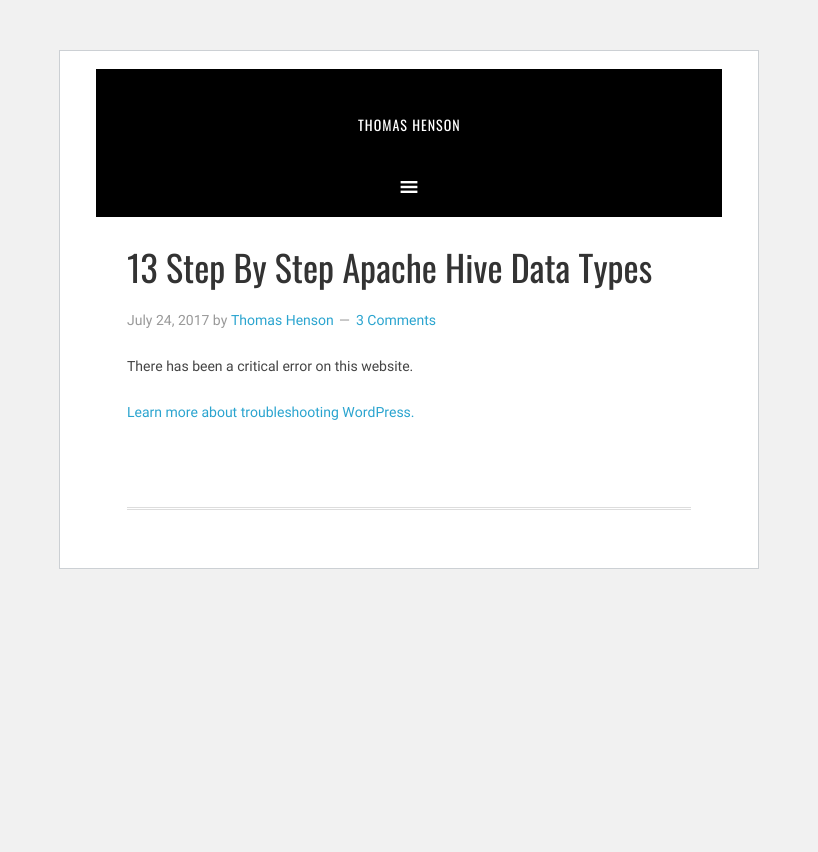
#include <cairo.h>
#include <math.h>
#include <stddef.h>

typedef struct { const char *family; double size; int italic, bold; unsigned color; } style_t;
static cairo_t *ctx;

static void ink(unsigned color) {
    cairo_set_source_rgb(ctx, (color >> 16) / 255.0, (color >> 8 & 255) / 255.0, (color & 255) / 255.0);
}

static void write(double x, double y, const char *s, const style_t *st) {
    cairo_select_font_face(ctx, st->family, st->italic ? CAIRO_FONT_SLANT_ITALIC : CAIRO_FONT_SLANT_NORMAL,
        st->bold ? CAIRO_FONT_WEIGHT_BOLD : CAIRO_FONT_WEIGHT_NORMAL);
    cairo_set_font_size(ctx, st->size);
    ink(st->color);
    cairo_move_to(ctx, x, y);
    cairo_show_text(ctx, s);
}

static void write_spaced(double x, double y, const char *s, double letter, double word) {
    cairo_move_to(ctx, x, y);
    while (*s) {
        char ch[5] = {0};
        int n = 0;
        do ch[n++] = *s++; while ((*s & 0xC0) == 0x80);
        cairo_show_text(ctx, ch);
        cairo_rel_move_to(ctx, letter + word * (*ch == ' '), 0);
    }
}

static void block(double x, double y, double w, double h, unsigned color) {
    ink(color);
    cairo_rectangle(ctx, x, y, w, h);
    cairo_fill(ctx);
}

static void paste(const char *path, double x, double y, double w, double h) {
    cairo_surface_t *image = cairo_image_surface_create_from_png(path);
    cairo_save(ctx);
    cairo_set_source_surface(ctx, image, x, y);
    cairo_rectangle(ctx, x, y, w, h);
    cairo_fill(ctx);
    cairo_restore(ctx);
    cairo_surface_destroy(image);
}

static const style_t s1 = {"Oswald", 36, 0, 0, 0x333333};
static const style_t s2 = {"Roboto", 14, 0, 0, 0x999999};
static const style_t s3 = {"Roboto", 14, 0, 0, 0x2aa4cf};
static const style_t s4 = {"Roboto", 14, 0, 0, 0x444444};

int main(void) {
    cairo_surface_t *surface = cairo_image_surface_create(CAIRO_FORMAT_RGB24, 818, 852);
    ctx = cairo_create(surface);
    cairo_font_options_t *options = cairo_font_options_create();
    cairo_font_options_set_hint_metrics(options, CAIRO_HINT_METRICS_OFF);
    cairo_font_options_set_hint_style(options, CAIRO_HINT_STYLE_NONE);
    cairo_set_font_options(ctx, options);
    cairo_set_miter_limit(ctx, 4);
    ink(0xf1f1f1);
    cairo_paint(ctx);
    ink(0xffffff);
    cairo_rectangle(ctx, 59.5, 50.5, 699, 518);
    cairo_fill_preserve(ctx);
    ink(0xccd0d4);
    cairo_set_line_width(ctx, 1);
    cairo_stroke(ctx);
    block(96, 69, 626, 148, 0x000000);
    cairo_select_font_face(ctx, "Oswald", CAIRO_FONT_SLANT_NORMAL, CAIRO_FONT_WEIGHT_NORMAL);
    cairo_set_font_size(ctx, 14);
    ink(0xffffff);
    write_spaced(358, 131, "THOMAS HENSON", 1, 0);
    paste("pic1.png", 400, 181, 18, 12);
    block(127, 507, 564, 1, 0xdddddd);
    block(127, 509, 564, 1, 0xdddddd);
    write(127, 283, "13 Step By Step Apache Hive Data Types", &s1);
    write(127, 325, "July 24, 2017 by", &s2);
    write(231, 325, "Thomas Henson", &s3);
    write(339, 325, "—", &s2);
    write(356, 325, "3 Comments", &s3);
    write(127, 371, "There has been a critical error on this website.", &s4);
    write(127, 417, "Learn more about troubleshooting WordPress.", &s3);
    cairo_surface_write_to_png(surface, "screenshot.png");
    cairo_font_options_destroy(options);
    cairo_destroy(ctx);
    cairo_surface_destroy(surface);
    return 0;
}
